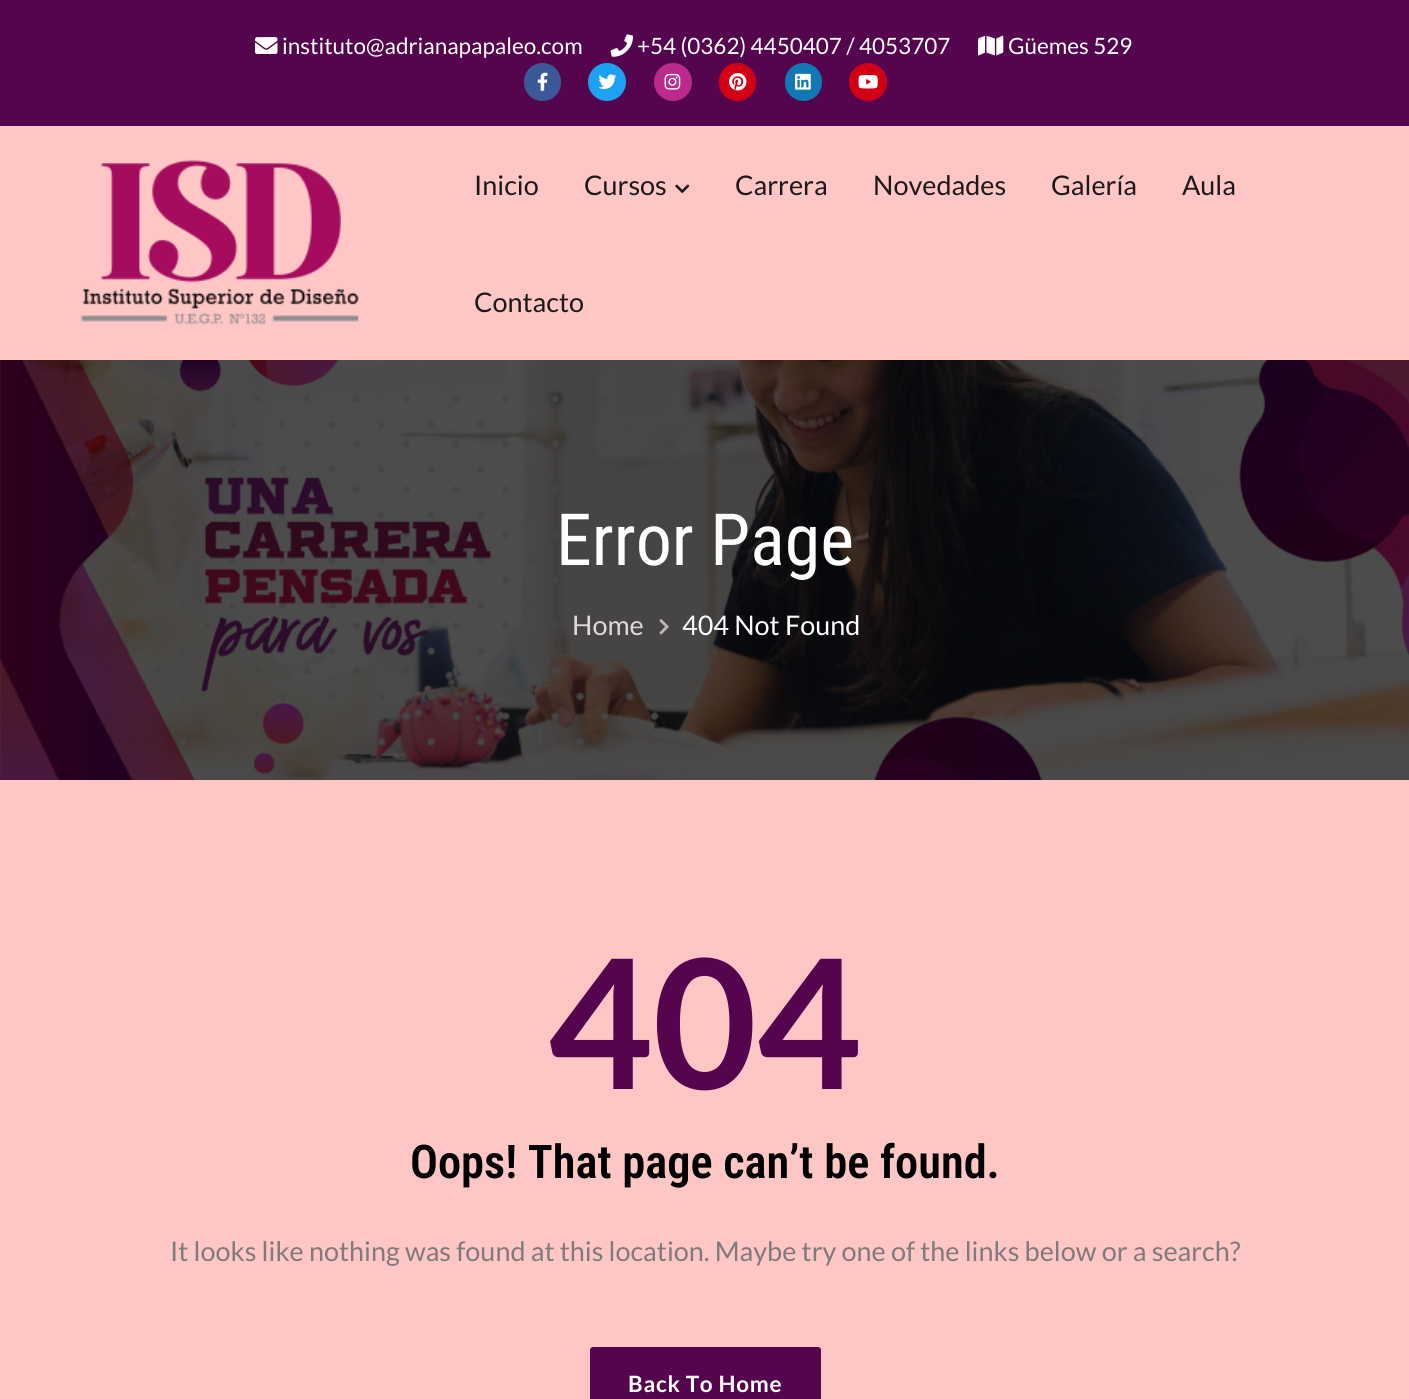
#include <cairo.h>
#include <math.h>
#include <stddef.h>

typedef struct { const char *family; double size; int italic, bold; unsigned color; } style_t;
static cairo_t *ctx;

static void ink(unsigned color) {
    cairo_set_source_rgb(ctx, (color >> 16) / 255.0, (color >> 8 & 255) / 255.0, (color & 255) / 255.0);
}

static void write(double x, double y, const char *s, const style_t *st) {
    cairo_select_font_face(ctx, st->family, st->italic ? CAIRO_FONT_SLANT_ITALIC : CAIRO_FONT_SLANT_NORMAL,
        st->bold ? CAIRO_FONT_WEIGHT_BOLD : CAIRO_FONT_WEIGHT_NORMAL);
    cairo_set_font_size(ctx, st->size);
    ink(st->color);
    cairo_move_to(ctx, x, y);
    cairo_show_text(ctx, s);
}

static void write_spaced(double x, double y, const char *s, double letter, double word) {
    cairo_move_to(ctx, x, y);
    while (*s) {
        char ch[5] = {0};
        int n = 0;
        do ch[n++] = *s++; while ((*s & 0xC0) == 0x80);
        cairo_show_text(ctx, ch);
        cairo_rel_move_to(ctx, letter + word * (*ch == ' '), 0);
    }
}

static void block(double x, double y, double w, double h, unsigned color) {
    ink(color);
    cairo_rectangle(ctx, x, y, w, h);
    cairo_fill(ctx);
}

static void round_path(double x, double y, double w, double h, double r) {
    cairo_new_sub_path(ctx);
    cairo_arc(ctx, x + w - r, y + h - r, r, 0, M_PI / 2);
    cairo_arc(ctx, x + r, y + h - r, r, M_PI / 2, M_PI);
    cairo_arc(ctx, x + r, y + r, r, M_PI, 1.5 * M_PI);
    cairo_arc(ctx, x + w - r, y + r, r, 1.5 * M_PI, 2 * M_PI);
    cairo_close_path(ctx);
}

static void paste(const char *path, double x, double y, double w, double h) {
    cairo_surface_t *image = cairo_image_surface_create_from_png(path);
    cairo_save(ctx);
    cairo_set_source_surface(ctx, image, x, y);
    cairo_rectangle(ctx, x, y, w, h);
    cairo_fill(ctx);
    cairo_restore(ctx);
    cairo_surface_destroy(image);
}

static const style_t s1 = {"Lato", 22.5, 0, 0, 0xffffff};
static const style_t s2 = {"Lato", 27, 0, 0, 0x1c1919};
static const style_t s3 = {"Roboto Condensed", 72, 0, 0, 0xffffff};
static const style_t s4 = {"Lato", 27, 0, 0, 0xdfd8d8};
static const style_t s5 = {"Lato", 27, 0, 0, 0xffffff};
static const style_t s6 = {"Lato", 180, 0, 1, 0x55054e};
static const style_t s7 = {"Roboto Condensed SemiBold", 46.4, 0, 0, 0x000000};
static const style_t s8 = {"Lato", 27, 0, 0, 0x807a7a};

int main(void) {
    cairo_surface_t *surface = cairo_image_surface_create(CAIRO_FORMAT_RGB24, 1409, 1399);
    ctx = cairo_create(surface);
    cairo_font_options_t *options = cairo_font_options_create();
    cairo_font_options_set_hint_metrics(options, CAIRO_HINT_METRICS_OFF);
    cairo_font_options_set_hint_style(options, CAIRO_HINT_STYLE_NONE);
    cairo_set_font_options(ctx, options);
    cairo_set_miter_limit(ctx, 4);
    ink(0xffc6c6);
    cairo_paint(ctx);
    block(0, 0, 1409, 126, 0x55054e);
    paste("pic1.png", 255, 37, 23, 17);
    write(282, 54, "instituto@adrianapapaleo.com", &s1);
    paste("pic2.png", 610, 34, 23, 23);
    write(637, 54, "+54 (0362) 4450407 / 4053707", &s1);
    paste("pic3.png", 978, 35, 26, 21);
    write(1008, 54, "Güemes 529", &s1);
    ink(0x3b5998);
    round_path(524, 63, 37, 38, 18.5);
    cairo_fill(ctx);
    paste("pic4.png", 537, 72, 11, 19);
    ink(0x1da1f2);
    cairo_arc(ctx, 607, 82, 19, 0, 2 * M_PI);
    cairo_fill(ctx);
    paste("pic5.png", 598, 74, 19, 16);
    ink(0xbc2a8d);
    cairo_arc(ctx, 673, 82, 19, 0, 2 * M_PI);
    cairo_fill(ctx);
    paste("pic6.png", 664, 73, 17, 17);
    ink(0xd20014);
    round_path(719, 63, 37, 38, 18.5);
    cairo_fill(ctx);
    paste("pic7.png", 729, 73, 18, 18);
    ink(0x1178b3);
    round_path(785, 63, 37, 38, 18.5);
    cairo_fill(ctx);
    paste("pic8.png", 795, 73, 16, 17);
    ink(0xd20014);
    cairo_arc(ctx, 868, 82, 19, 0, 2 * M_PI);
    cairo_fill(ctx);
    paste("pic9.png", 858, 75, 20, 14);
    paste("pic10.png", 80, 160, 279, 165);
    write(474, 195, "Inicio", &s2);
    write(584, 195, "Cursos", &s2);
    paste("pic11.png", 675, 184, 15, 9);
    write(735, 195, "Carrera", &s2);
    write(873, 195, "Novedades", &s2);
    write(1051, 195, "Galería", &s2);
    write(1182, 195, "Aula", &s2);
    write(474, 312, "Contacto", &s2);
    paste("pic12.png", 0, 360, 1409, 420);
    write(556, 565, "Error Page", &s3);
    write(572, 635, "Home", &s4);
    paste("pic13.png", 659, 619, 10, 16);
    write(682, 635, "404 Not Found", &s5);
    write(548, 1089, "404", &s6);
    write(410, 1178, "Oops! That page can’t be found.", &s7);
    write(170, 1261, "It looks like nothing was found at this location. Maybe try one of the links below or a search?", &s8);
    ink(0x55054e);
    round_path(591, 1348, 229, 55, 2);
    cairo_fill_preserve(ctx);
    cairo_stroke(ctx);
    cairo_select_font_face(ctx, "Lato", CAIRO_FONT_SLANT_NORMAL, CAIRO_FONT_WEIGHT_BOLD);
    cairo_set_font_size(ctx, 22.5);
    ink(0xffffff);
    write_spaced(628, 1392, "Back To Home", 0.75, 0);
    cairo_surface_write_to_png(surface, "screenshot.png");
    cairo_font_options_destroy(options);
    cairo_destroy(ctx);
    cairo_surface_destroy(surface);
    return 0;
}
